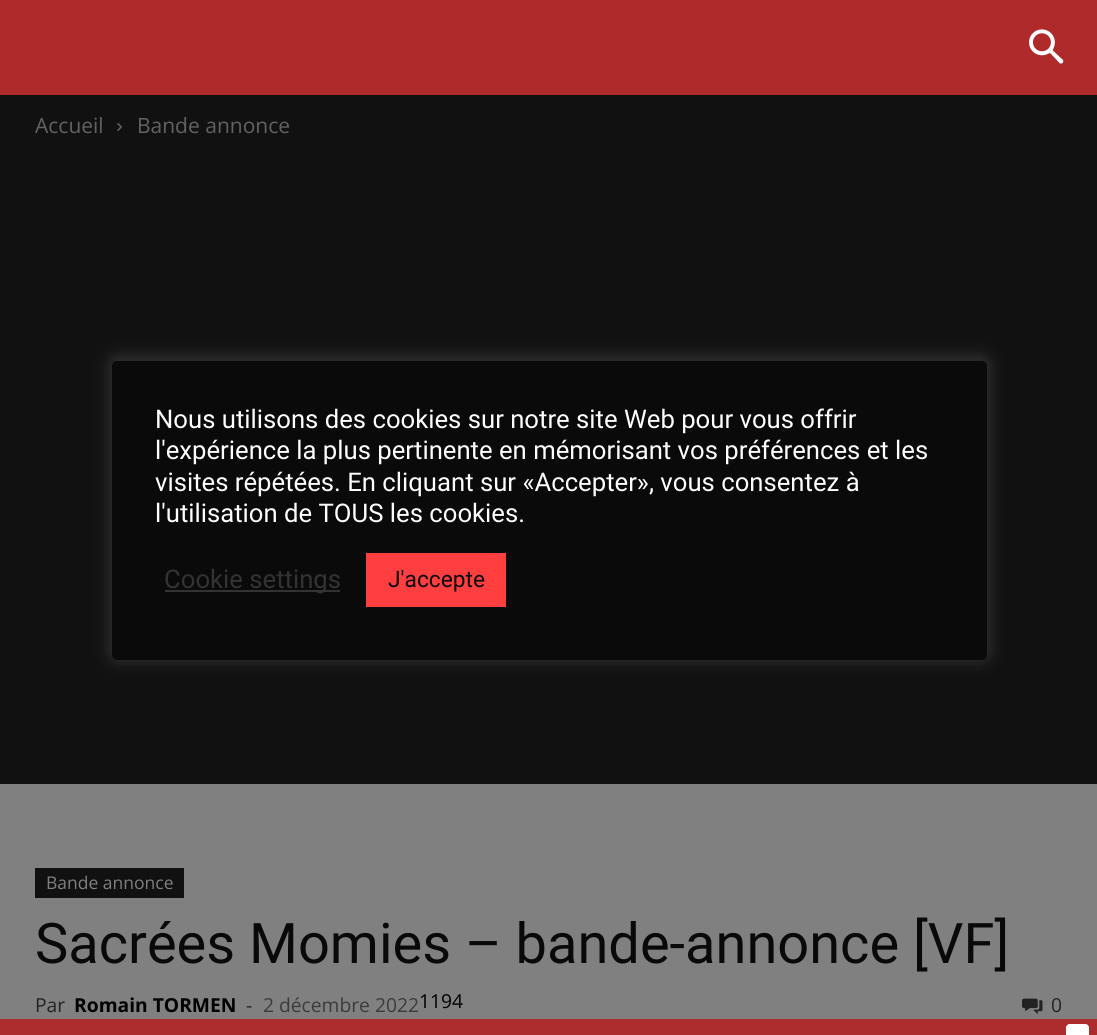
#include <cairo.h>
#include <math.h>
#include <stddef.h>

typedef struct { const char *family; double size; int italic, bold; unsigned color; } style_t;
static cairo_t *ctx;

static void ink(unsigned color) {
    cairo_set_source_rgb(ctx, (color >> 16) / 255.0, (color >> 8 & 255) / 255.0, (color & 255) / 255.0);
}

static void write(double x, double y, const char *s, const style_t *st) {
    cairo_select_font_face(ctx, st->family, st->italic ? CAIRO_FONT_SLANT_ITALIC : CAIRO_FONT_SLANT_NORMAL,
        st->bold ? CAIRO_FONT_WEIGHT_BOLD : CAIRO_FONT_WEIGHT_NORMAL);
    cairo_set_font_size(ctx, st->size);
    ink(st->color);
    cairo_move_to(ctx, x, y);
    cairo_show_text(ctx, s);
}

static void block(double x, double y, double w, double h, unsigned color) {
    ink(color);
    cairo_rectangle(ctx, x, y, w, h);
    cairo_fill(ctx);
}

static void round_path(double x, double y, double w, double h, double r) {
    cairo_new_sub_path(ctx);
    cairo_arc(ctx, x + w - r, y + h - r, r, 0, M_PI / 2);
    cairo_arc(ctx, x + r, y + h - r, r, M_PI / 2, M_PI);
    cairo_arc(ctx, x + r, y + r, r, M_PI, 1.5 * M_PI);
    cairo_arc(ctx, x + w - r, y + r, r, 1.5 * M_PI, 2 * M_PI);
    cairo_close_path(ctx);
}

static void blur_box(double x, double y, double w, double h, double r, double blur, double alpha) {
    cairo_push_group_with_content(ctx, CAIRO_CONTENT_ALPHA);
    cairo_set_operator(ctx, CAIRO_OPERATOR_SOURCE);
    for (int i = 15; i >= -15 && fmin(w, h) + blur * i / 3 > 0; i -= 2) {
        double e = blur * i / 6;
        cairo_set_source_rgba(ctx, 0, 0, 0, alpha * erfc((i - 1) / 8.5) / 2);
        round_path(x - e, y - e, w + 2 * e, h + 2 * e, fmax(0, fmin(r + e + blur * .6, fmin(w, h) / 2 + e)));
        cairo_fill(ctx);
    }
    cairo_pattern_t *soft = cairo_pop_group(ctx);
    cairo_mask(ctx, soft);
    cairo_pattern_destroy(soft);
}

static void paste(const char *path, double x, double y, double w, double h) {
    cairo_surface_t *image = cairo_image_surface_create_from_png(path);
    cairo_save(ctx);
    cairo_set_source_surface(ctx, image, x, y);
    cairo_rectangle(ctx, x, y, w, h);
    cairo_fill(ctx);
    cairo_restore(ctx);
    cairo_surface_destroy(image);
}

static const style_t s1 = {"Open Sans", 21, 0, 0, 0x626262};
static const style_t s2 = {"Open Sans", 17.5, 0, 0, 0x808080};
static const style_t s3 = {"Roboto", 56, 0, 0, 0x090909};
static const style_t s4 = {"Open Sans", 19.25, 0, 0, 0x222222};
static const style_t s5 = {"Open Sans", 19.25, 0, 1, 0x000000};
static const style_t s6 = {"Open Sans", 19.25, 0, 0, 0x3b3b3b};
static const style_t s7 = {"Open Sans", 19.25, 0, 0, 0x000000};
static const style_t s8 = {"Roboto", 25.7, 0, 0, 0xffffff};
static const style_t s9 = {"Roboto", 25.7, 0, 0, 0x333333};
static const style_t s10 = {"Roboto", 22.75, 0, 0, 0x090909};

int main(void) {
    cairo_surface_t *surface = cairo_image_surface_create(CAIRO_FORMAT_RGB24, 1097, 1035);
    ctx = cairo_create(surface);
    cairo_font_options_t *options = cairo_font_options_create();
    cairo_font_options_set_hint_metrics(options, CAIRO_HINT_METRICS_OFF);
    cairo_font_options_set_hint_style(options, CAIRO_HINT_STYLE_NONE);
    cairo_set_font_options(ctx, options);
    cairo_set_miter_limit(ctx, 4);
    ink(0x808080);
    cairo_paint(ctx);
    block(0, 0, 1097, 95, 0xaf2a2a);
    paste("pic1.png", 1029, 29, 35, 35);
    block(0, 95, 1097, 689, 0x111111);
    write(35, 133, "Accueil", &s1);
    paste("pic2.png", 117, 123, 5, 8);
    write(137, 133, "Bande annonce", &s1);
    block(35, 868, 149, 30, 0x111111);
    write(46, 889, "Bande annonce", &s2);
    write(35, 963, "Sacrées Momies – bande-annonce [VF]", &s3);
    write(35, 1012, "Par", &s4);
    write(74, 1012, "Romain TORMEN", &s5);
    write(246, 1012, "-", &s4);
    write(263, 1012, "2 décembre 2022", &s6);
    write(419, 1008, "1194", &s7);
    paste("pic3.png", 1022, 998, 21, 17);
    write(1051, 1012, "0", &s4);
    ink(0xacabab);
    blur_box(112, 359, 875, 299, 5, 9, 0.3);
    ink(0x0a0a0a);
    round_path(112, 361, 875, 299, 5);
    cairo_fill(ctx);
    write(155, 428, "Nous utilisons des cookies sur notre site Web pour vous offrir", &s8);
    write(155, 459, "l'expérience la plus pertinente en mémorisant vos préférences et les", &s8);
    write(155, 491, "visites répétées. En cliquant sur «Accepter», vous consentez à", &s8);
    write(155, 522, "l'utilisation de TOUS les cookies.", &s8);
    block(165, 590, 175, 2, 0x333333);
    write(164, 588, "Cookie settings", &s9);
    block(366, 553, 140, 54, 0xff3f3f);
    write(388, 587, "J'accepte", &s10);
    block(0, 1019, 1097, 16, 0xad2c2e);
    ink(0xffffff);
    cairo_new_path(ctx);
    cairo_move_to(ctx, 1070, 1024);
    cairo_line_to(ctx, 1085, 1024);
    cairo_curve_to(ctx, 1087, 1024, 1089, 1026, 1089, 1028);
    cairo_line_to(ctx, 1089, 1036);
    cairo_line_to(ctx, 1066, 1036);
    cairo_line_to(ctx, 1066, 1028);
    cairo_curve_to(ctx, 1066, 1026, 1068, 1024, 1070, 1024);
    cairo_close_path(ctx);
    cairo_fill(ctx);
    round_path(1067, 1025, 21, 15, 3);
    cairo_stroke(ctx);
    cairo_surface_write_to_png(surface, "screenshot.png");
    cairo_font_options_destroy(options);
    cairo_destroy(ctx);
    cairo_surface_destroy(surface);
    return 0;
}
